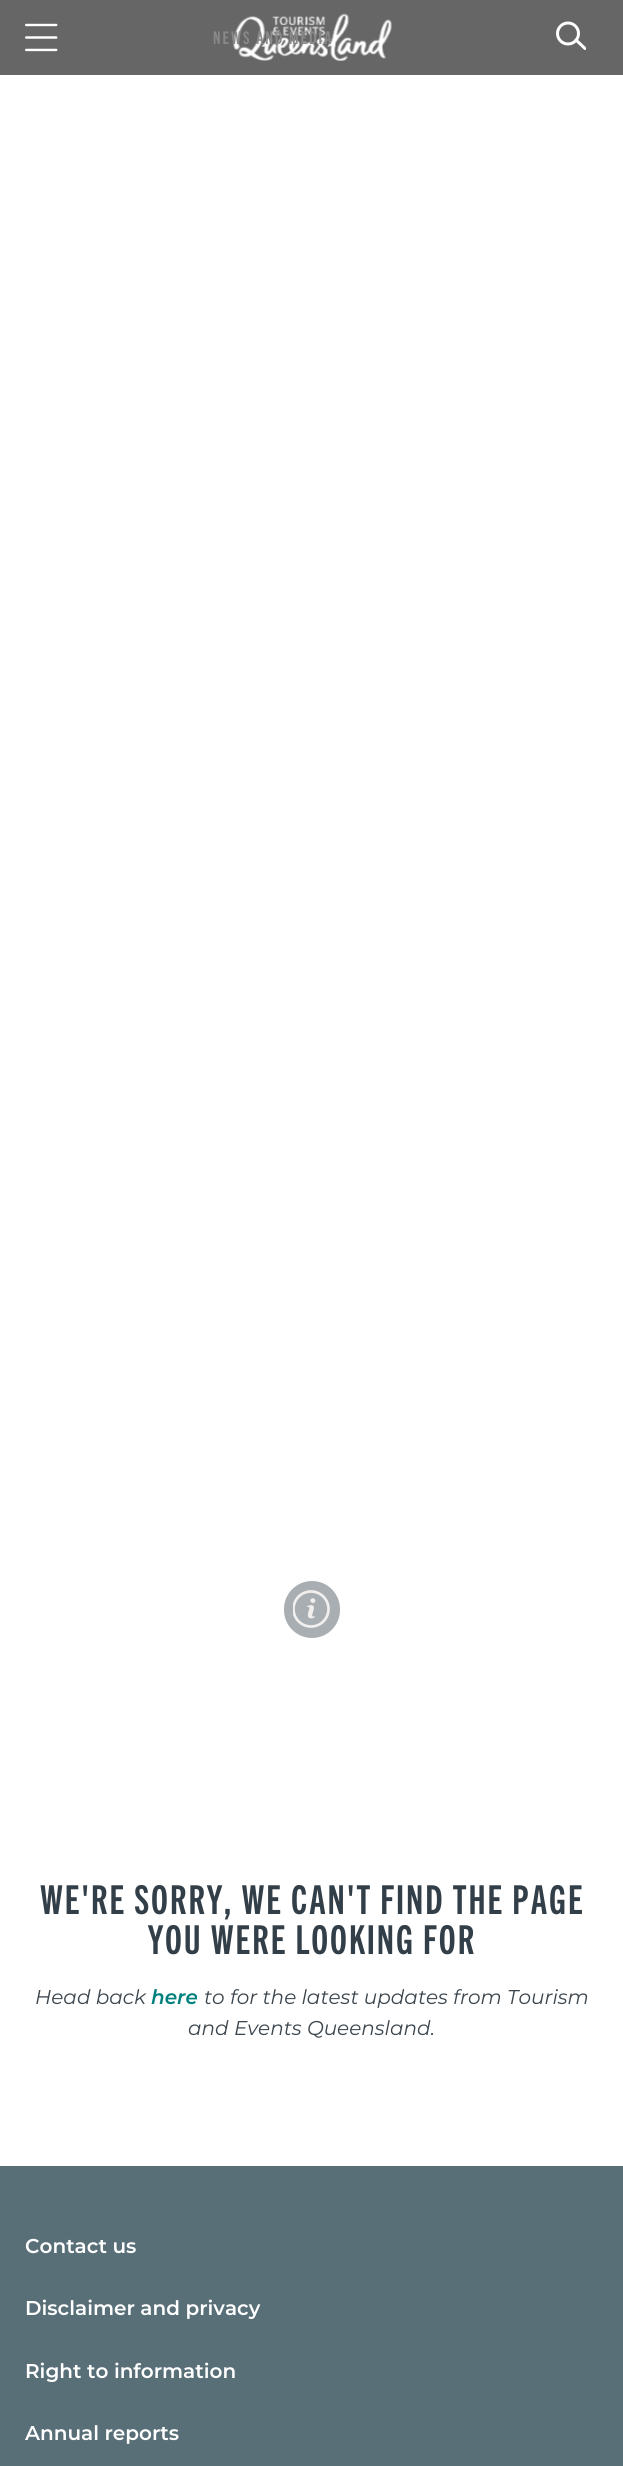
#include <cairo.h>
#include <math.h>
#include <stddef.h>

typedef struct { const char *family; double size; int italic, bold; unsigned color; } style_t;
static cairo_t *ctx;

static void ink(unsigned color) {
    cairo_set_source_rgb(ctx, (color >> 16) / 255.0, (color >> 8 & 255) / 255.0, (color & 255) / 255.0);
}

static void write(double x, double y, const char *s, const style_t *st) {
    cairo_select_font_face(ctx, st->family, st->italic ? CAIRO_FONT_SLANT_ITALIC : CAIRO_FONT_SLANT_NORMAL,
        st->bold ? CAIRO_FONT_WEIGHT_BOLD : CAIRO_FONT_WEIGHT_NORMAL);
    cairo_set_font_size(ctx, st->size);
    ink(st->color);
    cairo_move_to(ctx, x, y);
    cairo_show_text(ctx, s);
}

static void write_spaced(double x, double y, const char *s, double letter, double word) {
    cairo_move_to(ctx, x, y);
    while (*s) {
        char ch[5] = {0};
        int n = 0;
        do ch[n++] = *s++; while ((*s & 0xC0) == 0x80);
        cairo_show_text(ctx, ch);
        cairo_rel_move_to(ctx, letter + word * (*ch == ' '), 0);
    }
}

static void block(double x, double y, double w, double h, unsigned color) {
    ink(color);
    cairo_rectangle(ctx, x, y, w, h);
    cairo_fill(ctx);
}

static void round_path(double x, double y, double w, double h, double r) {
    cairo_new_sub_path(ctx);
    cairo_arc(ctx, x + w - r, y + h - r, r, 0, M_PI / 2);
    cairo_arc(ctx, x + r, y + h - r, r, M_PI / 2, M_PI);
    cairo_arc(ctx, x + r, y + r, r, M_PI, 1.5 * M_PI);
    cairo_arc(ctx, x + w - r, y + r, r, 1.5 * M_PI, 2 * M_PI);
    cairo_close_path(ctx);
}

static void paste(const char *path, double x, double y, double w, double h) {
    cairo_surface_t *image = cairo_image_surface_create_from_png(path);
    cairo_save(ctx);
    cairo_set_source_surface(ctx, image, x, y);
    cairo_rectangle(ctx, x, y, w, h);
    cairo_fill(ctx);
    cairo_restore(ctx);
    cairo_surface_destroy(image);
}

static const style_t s1 = {"Montserrat", 20, 1, 0, 0x3c464e};
static const style_t s2 = {"Montserrat SemiBold", 20, 1, 0, 0x00817d};
static const style_t s3 = {"Montserrat SemiBold", 20, 0, 0, 0xffffff};

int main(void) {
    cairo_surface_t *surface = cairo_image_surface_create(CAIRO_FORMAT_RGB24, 623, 2466);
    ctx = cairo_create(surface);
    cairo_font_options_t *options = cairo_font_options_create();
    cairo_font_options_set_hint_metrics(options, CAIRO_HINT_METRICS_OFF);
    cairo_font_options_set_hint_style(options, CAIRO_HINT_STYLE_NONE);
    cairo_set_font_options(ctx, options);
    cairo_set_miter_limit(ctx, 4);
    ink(0xffffff);
    cairo_paint(ctx);
    block(0, 0, 623, 75, 0x666666);
    paste("pic1.png", 25, 23, 33, 29);
    paste("pic2.png", 233, 13, 159, 48);
    cairo_arc(ctx, 568, 33.5, 10.5, 0, 2 * M_PI);
    ink(0xffffff);
    cairo_set_line_width(ctx, 3);
    cairo_stroke(ctx);
    cairo_save(ctx);
    cairo_rectangle(ctx, 556, 16, 30, 35);
    cairo_clip(ctx);
    cairo_new_path(ctx);
    cairo_move_to(ctx, 576, 40);
    cairo_line_to(ctx, 585, 48.5);
    cairo_set_line_cap(ctx, CAIRO_LINE_CAP_ROUND);
    cairo_stroke(ctx);
    cairo_restore(ctx);
    cairo_select_font_face(ctx, "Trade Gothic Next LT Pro", CAIRO_FONT_SLANT_NORMAL, CAIRO_FONT_WEIGHT_BOLD);
    cairo_set_font_size(ctx, 17.5);
    ink(0x898989);
    write_spaced(213, 44, "NEWS AND MEDIA", 2, 0);
    ink(0xa8aeb2);
    round_path(284, 1581, 56, 57, 28);
    cairo_fill(ctx);
    paste("pic3.png", 293, 1590, 37, 38);
    cairo_set_font_size(ctx, 40);
    ink(0x333f48);
    write_spaced(40, 1914, "WE'RE SORRY, WE CAN'T FIND THE PAGE", 2, 0);
    write_spaced(148, 1954, "YOU WERE LOOKING FOR", 2, 0);
    write(35, 2004, "Head back", &s1);
    write(151, 2004, "here", &s2);
    write(204, 2004, "to for the latest updates from Tourism", &s1);
    write(188, 2035, "and Events Queensland.", &s1);
    block(0, 2166, 623, 300, 0x586f78);
    write(25, 2253, "Contact us", &s3);
    write(25, 2315, "Disclaimer and privacy", &s3);
    write(25, 2378, "Right to information", &s3);
    write(25, 2440, "Annual reports", &s3);
    cairo_surface_write_to_png(surface, "screenshot.png");
    cairo_font_options_destroy(options);
    cairo_destroy(ctx);
    cairo_surface_destroy(surface);
    return 0;
}
